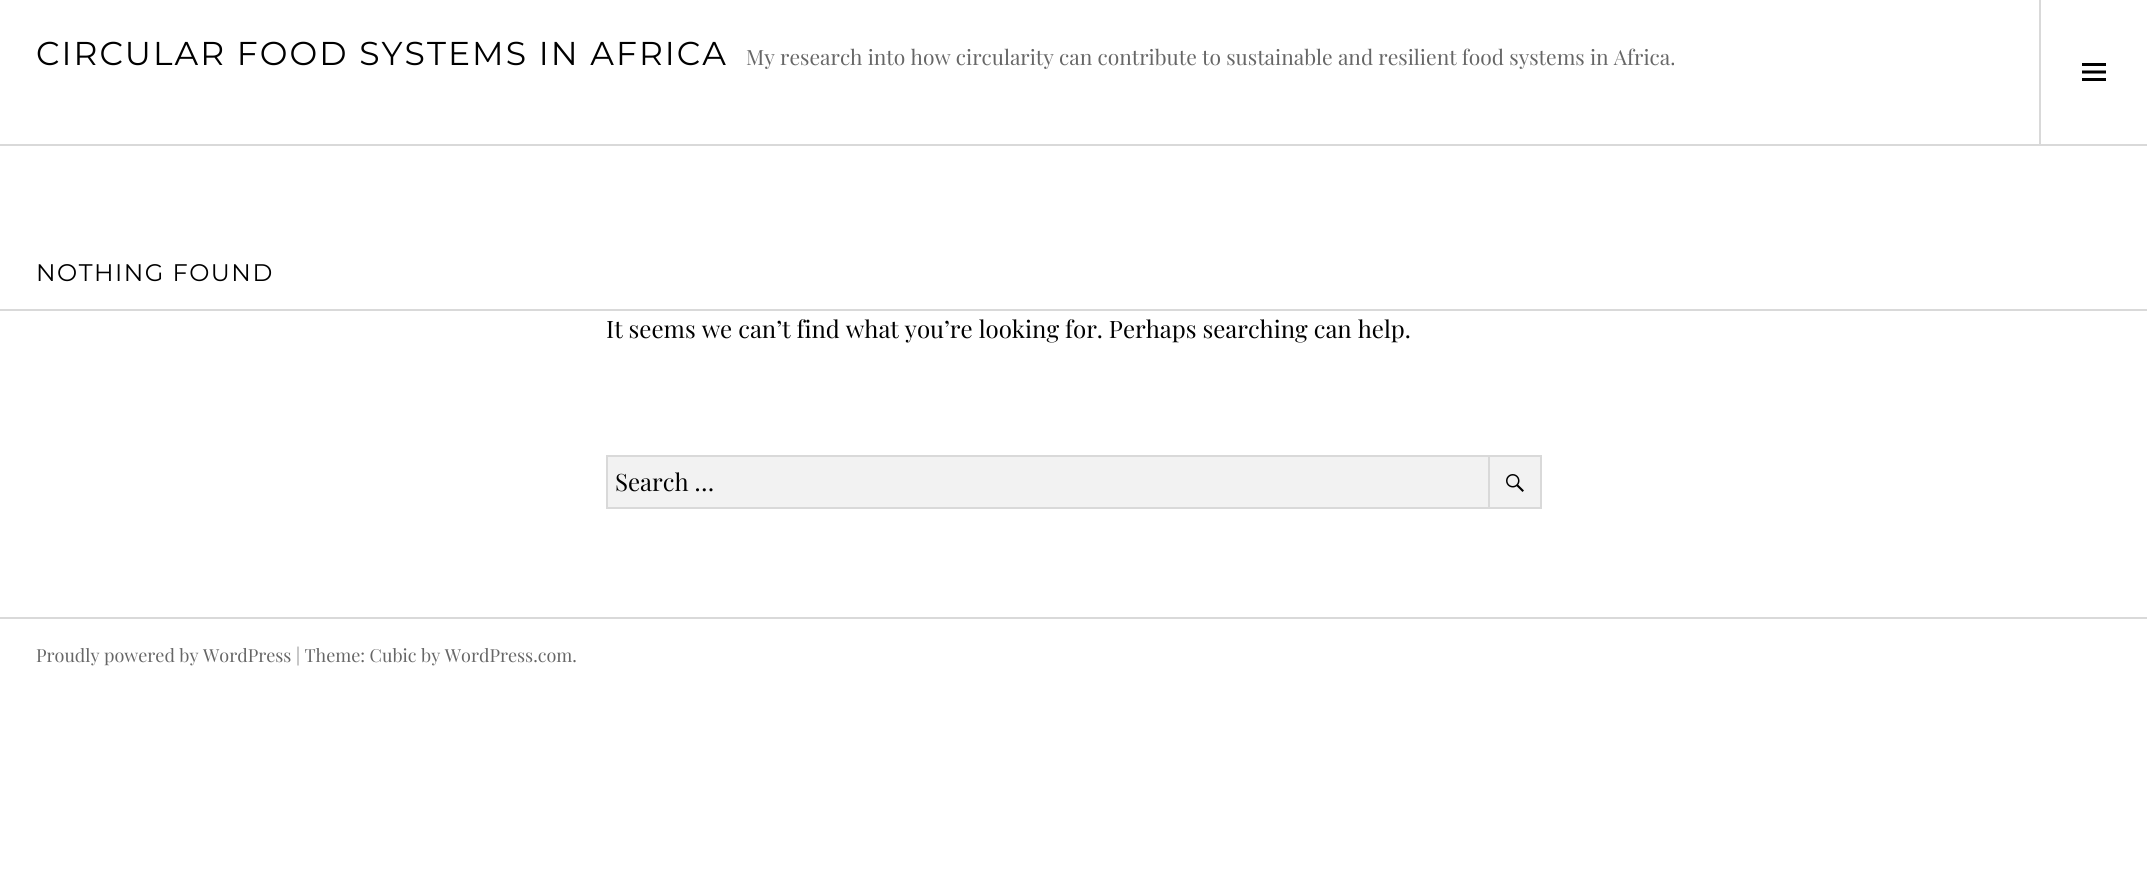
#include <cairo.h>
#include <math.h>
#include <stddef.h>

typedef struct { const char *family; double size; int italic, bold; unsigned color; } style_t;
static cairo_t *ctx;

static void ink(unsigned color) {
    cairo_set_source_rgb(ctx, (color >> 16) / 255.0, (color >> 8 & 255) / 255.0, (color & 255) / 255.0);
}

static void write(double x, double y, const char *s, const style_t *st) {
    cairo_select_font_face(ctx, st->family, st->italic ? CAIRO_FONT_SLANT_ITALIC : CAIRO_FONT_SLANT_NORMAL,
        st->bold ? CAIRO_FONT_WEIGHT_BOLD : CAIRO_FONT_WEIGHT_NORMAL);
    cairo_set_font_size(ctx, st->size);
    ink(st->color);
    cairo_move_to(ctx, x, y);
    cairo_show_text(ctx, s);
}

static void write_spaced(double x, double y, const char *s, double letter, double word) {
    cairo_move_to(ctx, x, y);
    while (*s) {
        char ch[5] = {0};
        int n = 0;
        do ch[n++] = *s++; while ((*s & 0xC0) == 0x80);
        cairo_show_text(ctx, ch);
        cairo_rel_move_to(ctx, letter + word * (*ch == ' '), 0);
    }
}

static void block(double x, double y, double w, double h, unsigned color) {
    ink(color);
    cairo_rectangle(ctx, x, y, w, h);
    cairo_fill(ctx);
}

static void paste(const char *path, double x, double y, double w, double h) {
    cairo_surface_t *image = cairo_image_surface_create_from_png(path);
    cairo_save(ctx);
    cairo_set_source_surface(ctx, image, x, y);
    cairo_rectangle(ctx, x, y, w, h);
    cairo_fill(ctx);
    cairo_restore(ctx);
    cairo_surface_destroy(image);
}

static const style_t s1 = {"Playfair Display", 21, 0, 0, 0x666666};
static const style_t s2 = {"Playfair Display", 24, 0, 0, 0x000000};
static const style_t s3 = {"Playfair Display", 18, 0, 0, 0x666666};

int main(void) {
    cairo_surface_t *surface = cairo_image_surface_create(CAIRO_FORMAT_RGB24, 2147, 893);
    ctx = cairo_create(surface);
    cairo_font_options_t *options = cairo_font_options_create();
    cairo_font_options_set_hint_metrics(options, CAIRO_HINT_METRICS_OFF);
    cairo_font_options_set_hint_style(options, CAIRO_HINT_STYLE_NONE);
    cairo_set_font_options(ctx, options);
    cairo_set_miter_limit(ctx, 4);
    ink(0xffffff);
    cairo_paint(ctx);
    block(0, 144, 2147, 2, 0xd9d9d9);
    cairo_select_font_face(ctx, "Montserrat", CAIRO_FONT_SLANT_NORMAL, CAIRO_FONT_WEIGHT_NORMAL);
    cairo_set_font_size(ctx, 33);
    ink(0x000000);
    write_spaced(36, 65, "CIRCULAR FOOD SYSTEMS IN AFRICA", 2.05, 0);
    write(746, 65, "My research into how circularity can contribute to sustainable and resilient food systems in Africa.", &s1);
    block(2039, 0, 2, 144, 0xd9d9d9);
    paste("pic1.png", 2082, 63, 24, 18);
    block(0, 309, 2147, 2, 0xd9d9d9);
    cairo_select_font_face(ctx, "Montserrat", CAIRO_FONT_SLANT_NORMAL, CAIRO_FONT_WEIGHT_NORMAL);
    cairo_set_font_size(ctx, 24);
    ink(0x000000);
    write_spaced(36, 281, "NOTHING FOUND", 1.5, 0);
    write(606, 338, "It seems we can’t find what you’re looking for. Perhaps searching can help.", &s2);
    block(608, 457, 880, 50, 0xf2f2f2);
    cairo_rectangle(ctx, 607, 456, 934, 52);
    ink(0xd9d9d9);
    cairo_stroke(ctx);
    write(615, 491, "Search …", &s2);
    ink(0xf2f2f2);
    cairo_rectangle(ctx, 1489, 456, 52, 52);
    cairo_fill_preserve(ctx);
    ink(0xd9d9d9);
    cairo_stroke(ctx);
    paste("pic2.png", 1506, 474, 18, 18);
    block(0, 617, 2147, 2, 0xd9d9d9);
    write(36, 662, "Proudly powered by WordPress | Theme: Cubic by WordPress.com.", &s3);
    cairo_surface_write_to_png(surface, "screenshot.png");
    cairo_font_options_destroy(options);
    cairo_destroy(ctx);
    cairo_surface_destroy(surface);
    return 0;
}
